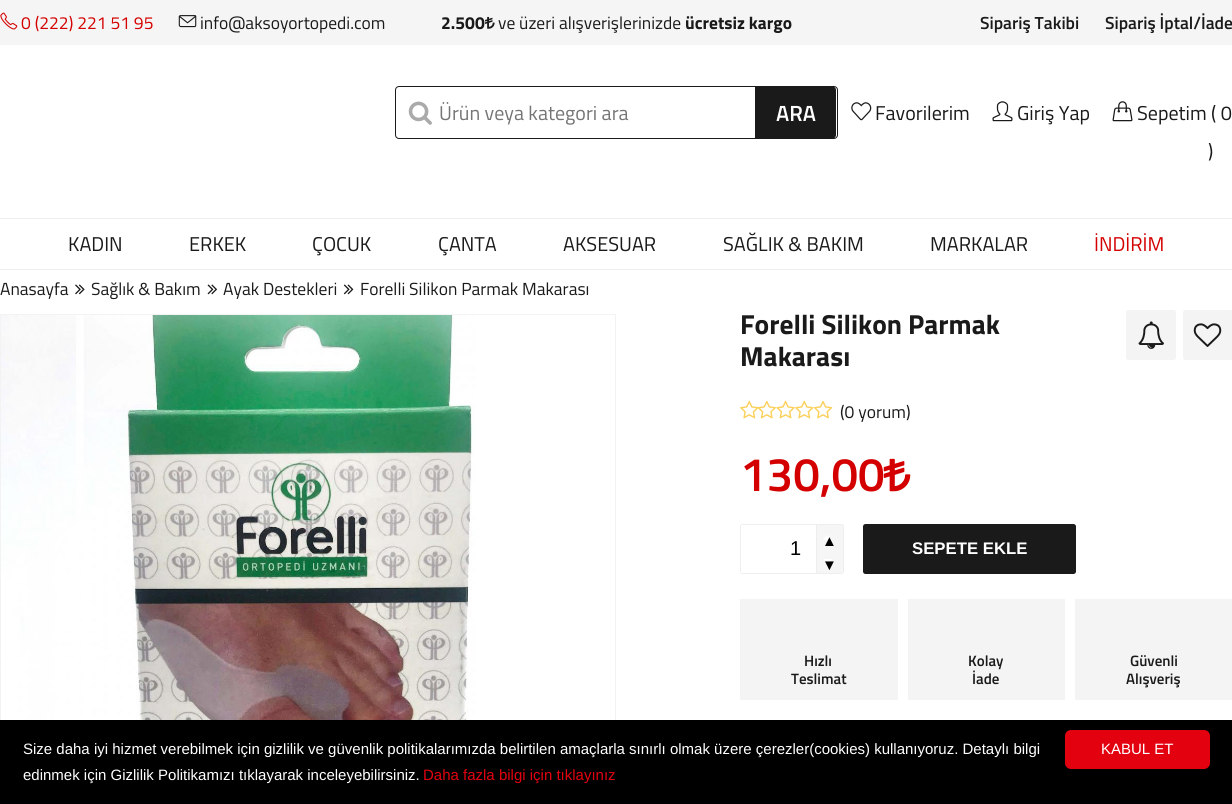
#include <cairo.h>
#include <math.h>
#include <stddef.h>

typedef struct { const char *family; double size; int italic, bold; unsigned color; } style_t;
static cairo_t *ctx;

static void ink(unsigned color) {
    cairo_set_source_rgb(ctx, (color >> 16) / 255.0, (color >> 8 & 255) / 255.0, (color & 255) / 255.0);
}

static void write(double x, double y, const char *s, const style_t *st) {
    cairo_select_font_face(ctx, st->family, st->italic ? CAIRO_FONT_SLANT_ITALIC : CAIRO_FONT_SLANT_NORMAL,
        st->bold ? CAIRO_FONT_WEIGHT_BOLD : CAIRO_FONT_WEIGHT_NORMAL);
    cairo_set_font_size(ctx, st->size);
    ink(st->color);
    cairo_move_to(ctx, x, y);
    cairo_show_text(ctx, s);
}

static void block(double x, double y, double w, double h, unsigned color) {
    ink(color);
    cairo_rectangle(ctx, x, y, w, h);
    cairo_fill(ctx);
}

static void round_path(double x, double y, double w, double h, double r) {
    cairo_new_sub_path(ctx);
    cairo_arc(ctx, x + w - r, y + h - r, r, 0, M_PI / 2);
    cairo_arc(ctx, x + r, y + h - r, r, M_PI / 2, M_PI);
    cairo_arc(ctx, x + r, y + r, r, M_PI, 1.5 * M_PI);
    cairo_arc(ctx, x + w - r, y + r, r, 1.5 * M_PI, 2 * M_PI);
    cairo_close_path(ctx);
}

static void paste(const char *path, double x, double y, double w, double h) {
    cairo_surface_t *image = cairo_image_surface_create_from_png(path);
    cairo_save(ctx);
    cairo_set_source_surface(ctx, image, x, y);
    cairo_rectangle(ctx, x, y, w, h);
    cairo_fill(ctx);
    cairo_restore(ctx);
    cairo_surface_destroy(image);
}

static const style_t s1 = {"Titillium Web", 17.5, 0, 0, 0xd40000};
static const style_t s2 = {"Titillium Web", 17.5, 0, 0, 0x1a1a1a};
static const style_t s3 = {"Titillium Web", 17.5, 0, 1, 0x1a1a1a};
static const style_t s4 = {"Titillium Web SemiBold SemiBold", 17.5, 0, 0, 0x1a1a1a};
static const style_t s5 = {"Titillium Web", 20, 0, 0, 0x757575};
static const style_t s6 = {"Titillium Web SemiBold SemiBold", 22, 0, 0, 0xffffff};
static const style_t s7 = {"Titillium Web", 20, 0, 0, 0x1a1a1a};
static const style_t s8 = {"Titillium Web", 20, 0, 0, 0xd40000};
static const style_t s9 = {"Titillium Web", 27.5, 0, 1, 0x1a1a1a};
static const style_t s10 = {"Titillium Web SemiBold SemiBold", 47.5, 0, 0, 0xd40000};
static const style_t s11 = {"Liberation Sans", 20, 0, 0, 0x000000};
static const style_t s12 = {"Liberation Sans", 15, 0, 1, 0x000000};
static const style_t s13 = {"Liberation Sans", 16.75, 0, 1, 0xffffff};
static const style_t s14 = {"Titillium Web SemiBold SemiBold", 15, 0, 0, 0x1a1a1a};
static const style_t s15 = {"Liberation Sans", 15, 0, 0, 0xffffff};
static const style_t s16 = {"Liberation Sans", 15, 0, 0, 0xe3000f};

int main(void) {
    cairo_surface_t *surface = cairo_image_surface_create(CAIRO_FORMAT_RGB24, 1232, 804);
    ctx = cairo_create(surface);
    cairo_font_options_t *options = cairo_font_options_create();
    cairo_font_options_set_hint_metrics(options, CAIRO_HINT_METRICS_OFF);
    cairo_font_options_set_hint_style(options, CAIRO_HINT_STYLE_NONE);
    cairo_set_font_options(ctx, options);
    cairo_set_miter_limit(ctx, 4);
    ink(0xffffff);
    cairo_paint(ctx);
    block(0, 0, 1232, 45, 0xf5f5f5);
    paste("pic1.png", 0, 12, 18, 18);
    write(21, 29, "0 (222) 221 51 95", &s1);
    paste("pic2.png", 178, 15, 19, 13);
    write(200, 29, "info@aksoyortopedi.com", &s2);
    write(441, 29, "2.500", &s3);
    paste("pic3.png", 485, 16, 10, 13);
    write(498, 29, "ve üzeri alışverişlerinizde", &s2);
    write(685, 29, "ücretsiz kargo", &s3);
    write(980, 29, "Sipariş Takibi", &s4);
    write(1105, 29, "Sipariş İptal/İade", &s4);
    round_path(395.5, 86.5, 442, 52, 3.5);
    cairo_set_line_width(ctx, 1);
    cairo_stroke(ctx);
    paste("pic4.png", 408, 101, 24, 24);
    write(439, 120, "Ürün veya kategori ara", &s5);
    ink(0x1a1a1a);
    cairo_new_path(ctx);
    cairo_move_to(ctx, 755, 86);
    cairo_line_to(ctx, 832, 86);
    cairo_curve_to(ctx, 834, 86, 836, 88, 836, 90);
    cairo_line_to(ctx, 836, 135);
    cairo_curve_to(ctx, 836, 137, 834, 139, 832, 139);
    cairo_line_to(ctx, 755, 139);
    cairo_close_path(ctx);
    cairo_fill(ctx);
    write(776, 121, "ARA", &s6);
    paste("pic5.png", 851, 102, 21, 19);
    write(875, 120, "Favorilerim", &s7);
    paste("pic6.png", 992, 101, 21, 21);
    write(1017, 120, "Giriş Yap", &s7);
    paste("pic7.png", 1112, 101, 21, 21);
    write(1137, 120, "Sepetim ( 0", &s7);
    write(1208, 158, ")", &s7);
    block(0, 218, 1232, 1, 0xeeeeee);
    block(0, 269, 1232, 1, 0xeeeeee);
    write(68, 251, "KADIN", &s7);
    write(189, 251, "ERKEK", &s7);
    write(312, 251, "ÇOCUK", &s7);
    write(438, 251, "ÇANTA", &s7);
    write(563, 251, "AKSESUAR", &s7);
    write(723, 251, "SAĞLIK & BAKIM", &s7);
    write(930, 251, "MARKALAR", &s7);
    write(1094, 251, "İNDİRİM", &s8);
    write(0, 295, "Anasayfa", &s2);
    paste("pic8.png", 75, 284, 10, 11);
    write(91, 295, "Sağlık & Bakım", &s2);
    paste("pic9.png", 207, 284, 10, 11);
    write(223, 295, "Ayak Destekleri", &s2);
    paste("pic10.png", 343, 284, 11, 11);
    write(360, 295, "Forelli Silikon Parmak Makarası", &s2);
    cairo_rectangle(ctx, 0.5, 314.5, 615, 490);
    ink(0xf3f3f3);
    cairo_stroke(ctx);
    paste("pic11.png", 1, 315, 475, 405);
    write(740, 334, "Forelli Silikon Parmak", &s9);
    write(740, 366, "Makarası", &s9);
    ink(0xf4f4f4);
    round_path(1126, 310, 50, 50, 2.5);
    cairo_fill(ctx);
    paste("pic12.png", 1138, 321, 26, 28);
    round_path(1183, 310, 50, 50, 2.5);
    cairo_fill(ctx);
    paste("pic13.png", 1193, 323, 29, 24);
    paste("pic14.png", 740, 400, 19, 19);
    paste("pic15.png", 758, 400, 18, 19);
    paste("pic16.png", 776, 400, 19, 19);
    paste("pic14.png", 795, 400, 19, 19);
    paste("pic17.png", 813, 400, 20, 19);
    write(840, 418, "(0 yorum)", &s2);
    write(740, 491, "130,00", &s10);
    paste("pic18.png", 883, 458, 28, 34);
    round_path(740.5, 524.5, 103, 49, 2);
    ink(0xeeeeee);
    cairo_stroke(ctx);
    ink(0xffffff);
    cairo_new_path(ctx);
    cairo_move_to(ctx, 742, 525);
    cairo_line_to(ctx, 814, 525);
    cairo_line_to(ctx, 814, 573);
    cairo_line_to(ctx, 742, 573);
    cairo_curve_to(ctx, 741.5, 573, 741, 572.5, 741, 572);
    cairo_line_to(ctx, 741, 526);
    cairo_curve_to(ctx, 741, 525.5, 741.5, 525, 742, 525);
    cairo_close_path(ctx);
    cairo_fill(ctx);
    write(790, 555, "1", &s11);
    ink(0xf6f6f6);
    cairo_new_path(ctx);
    cairo_move_to(ctx, 816, 525);
    cairo_line_to(ctx, 842, 525);
    cairo_curve_to(ctx, 842.5, 525, 843, 525.5, 843, 526);
    cairo_line_to(ctx, 843, 550);
    cairo_line_to(ctx, 816, 550);
    cairo_close_path(ctx);
    cairo_fill(ctx);
    block(816, 525, 1, 25, 0xeeeeee);
    paste("pic19.png", 823, 535, 8, 5);
    write(822, 546, "▲", &s12);
    ink(0xf6f6f6);
    cairo_new_path(ctx);
    cairo_move_to(ctx, 816, 549);
    cairo_line_to(ctx, 843, 549);
    cairo_line_to(ctx, 843, 572);
    cairo_curve_to(ctx, 843, 572.5, 842.5, 573, 842, 573);
    cairo_line_to(ctx, 816, 573);
    cairo_close_path(ctx);
    cairo_fill(ctx);
    block(816, 549, 1, 24, 0xeeeeee);
    paste("pic20.png", 824, 559, 9, 5);
    write(822, 570, "▼", &s12);
    ink(0x1a1a1a);
    round_path(863, 524, 213, 50, 2.5);
    cairo_fill(ctx);
    write(912, 554, "SEPETE EKLE", &s13);
    block(740, 599, 158, 101, 0xf4f4f4);
    write(804, 666, "Hızlı", &s14);
    write(791, 684, "Teslimat", &s14);
    block(908, 599, 157, 101, 0xf4f4f4);
    write(968, 666, "Kolay", &s14);
    write(972, 684, "İade", &s14);
    block(1075, 599, 157, 101, 0xf4f4f4);
    write(1130, 666, "Güvenli", &s14);
    write(1126, 684, "Alışveriş", &s14);
    block(0, 720, 1232, 84, 0x000000);
    write(23, 754, "Size daha iyi hizmet verebilmek için gizlilik ve güvenlik politikalarımızda belirtilen amaçlarla sınırlı olmak üzere çerezler(cookies) kullanıyoruz. Detaylı bilgi", &s15);
    write(23, 780, "edinmek için Gizlilik Politikamızı tıklayarak inceleyebilirsiniz.", &s15);
    write(423, 780, "Daha fazla bilgi için tıklayınız", &s16);
    round_path(1065, 730, 145, 39, 6);
    cairo_fill(ctx);
    write(1101, 754, "KABUL ET", &s15);
    cairo_surface_write_to_png(surface, "screenshot.png");
    cairo_font_options_destroy(options);
    cairo_destroy(ctx);
    cairo_surface_destroy(surface);
    return 0;
}
